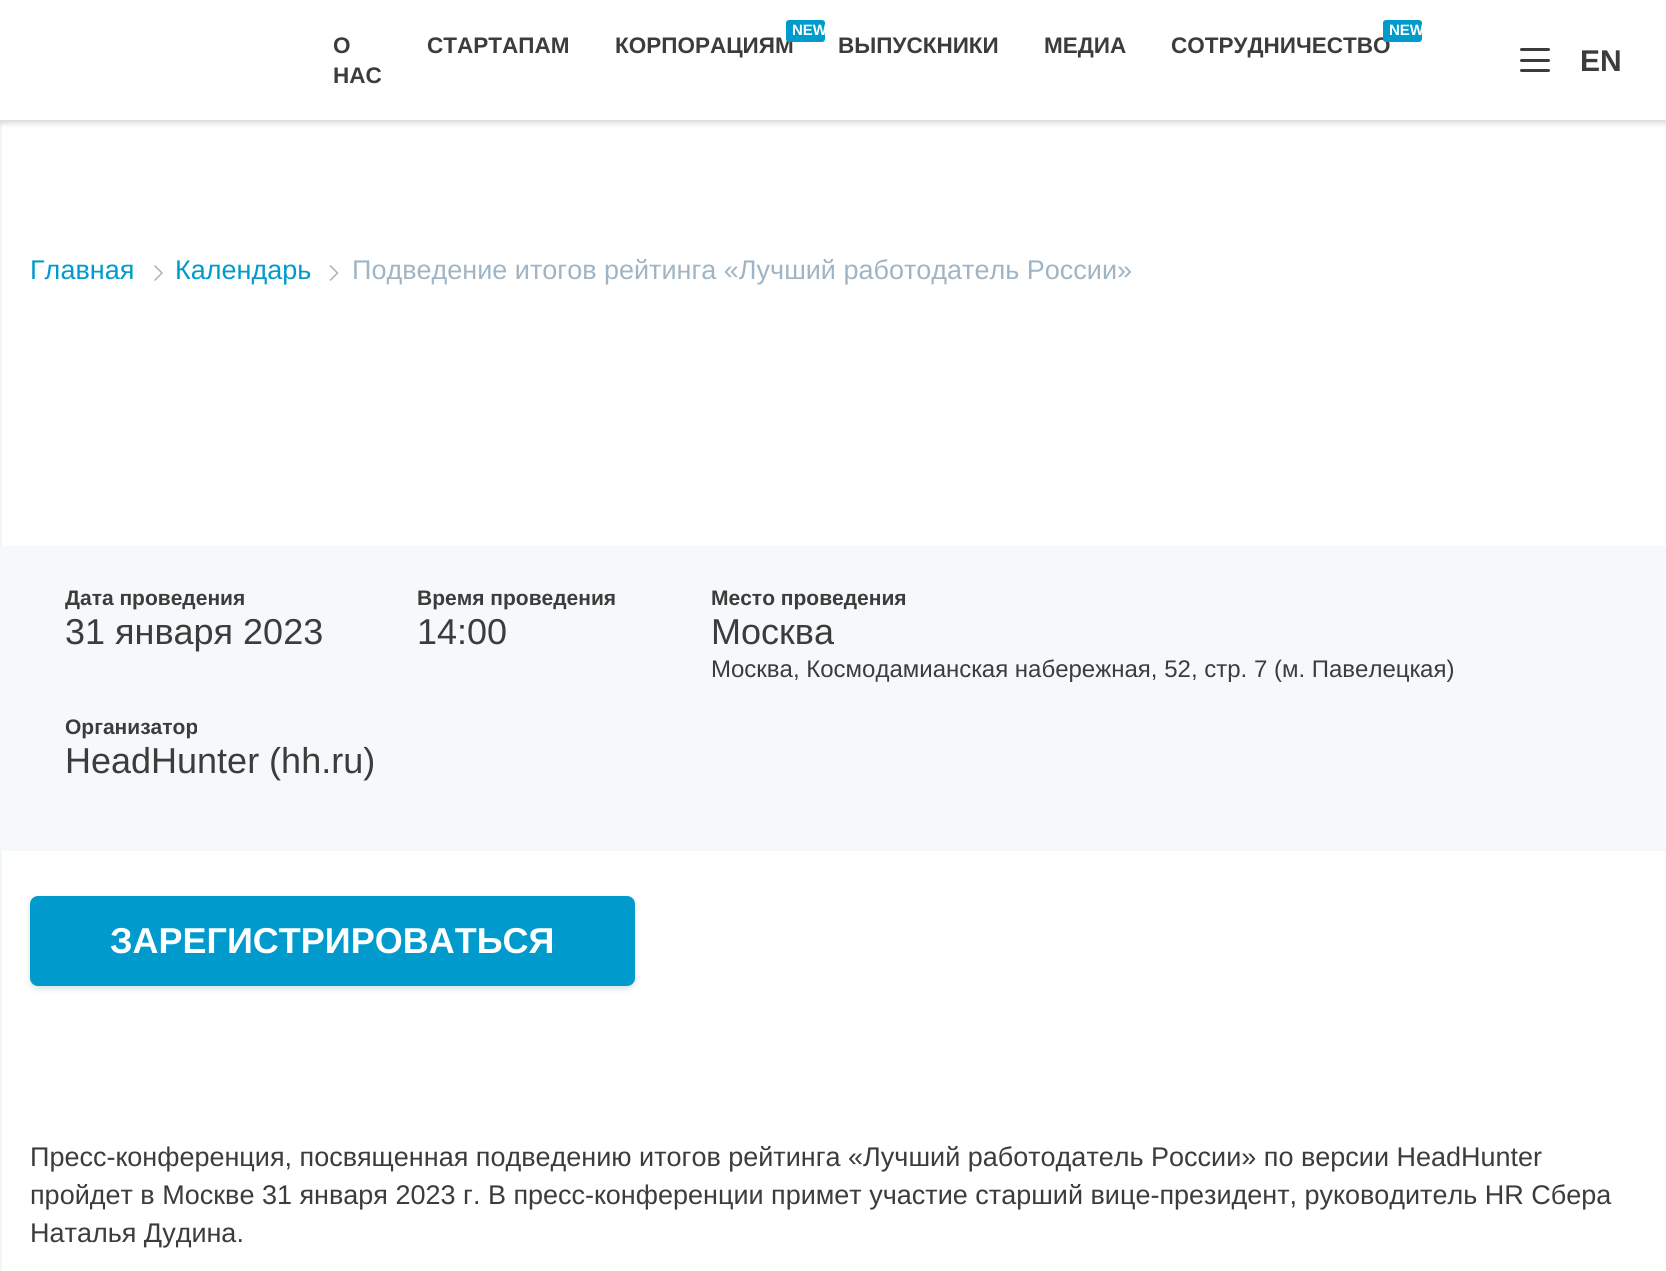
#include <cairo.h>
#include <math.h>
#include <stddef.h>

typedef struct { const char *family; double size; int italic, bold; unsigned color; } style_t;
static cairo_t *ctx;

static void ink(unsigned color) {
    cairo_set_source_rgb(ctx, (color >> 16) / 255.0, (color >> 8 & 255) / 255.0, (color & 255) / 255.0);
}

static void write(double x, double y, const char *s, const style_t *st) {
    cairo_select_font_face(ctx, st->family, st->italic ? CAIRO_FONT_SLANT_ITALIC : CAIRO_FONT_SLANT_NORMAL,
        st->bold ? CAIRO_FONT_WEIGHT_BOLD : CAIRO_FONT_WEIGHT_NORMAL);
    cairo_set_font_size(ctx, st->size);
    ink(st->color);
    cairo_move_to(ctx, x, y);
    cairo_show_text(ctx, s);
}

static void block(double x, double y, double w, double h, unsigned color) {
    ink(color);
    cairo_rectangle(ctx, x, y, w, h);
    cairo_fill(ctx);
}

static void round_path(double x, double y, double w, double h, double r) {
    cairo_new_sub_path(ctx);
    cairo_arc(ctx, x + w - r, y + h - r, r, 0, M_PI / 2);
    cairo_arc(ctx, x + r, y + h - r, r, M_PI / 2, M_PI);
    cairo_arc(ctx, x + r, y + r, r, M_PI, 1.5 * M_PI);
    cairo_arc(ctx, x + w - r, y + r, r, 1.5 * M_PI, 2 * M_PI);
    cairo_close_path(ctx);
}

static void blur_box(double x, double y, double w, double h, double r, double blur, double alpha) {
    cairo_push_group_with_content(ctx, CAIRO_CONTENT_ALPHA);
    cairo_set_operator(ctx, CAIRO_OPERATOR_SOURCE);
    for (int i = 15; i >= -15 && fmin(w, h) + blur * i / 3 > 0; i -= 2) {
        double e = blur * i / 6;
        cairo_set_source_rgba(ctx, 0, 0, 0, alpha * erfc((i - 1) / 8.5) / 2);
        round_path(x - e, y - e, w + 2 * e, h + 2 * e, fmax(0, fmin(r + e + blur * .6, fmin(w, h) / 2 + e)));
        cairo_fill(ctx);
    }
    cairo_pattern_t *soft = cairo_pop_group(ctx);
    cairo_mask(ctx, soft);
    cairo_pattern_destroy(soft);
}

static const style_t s1 = {"Liberation Sans", 22.5, 0, 1, 0x3c3c3b};
static const style_t s2 = {"Liberation Sans", 15, 0, 1, 0xffffff};
static const style_t s3 = {"Liberation Sans", 30, 0, 1, 0x3c3c3b};
static const style_t s4 = {"Liberation Sans", 27, 0, 0, 0x009bcc};
static const style_t s5 = {"Liberation Sans", 27, 0, 0, 0x9fb5c5};
static const style_t s6 = {"Liberation Sans", 21, 0, 1, 0x3c3c3b};
static const style_t s7 = {"Liberation Sans", 36, 0, 0, 0x3c3c3b};
static const style_t s8 = {"Liberation Sans", 24, 0, 0, 0x3c3c3b};
static const style_t s9 = {"Liberation Sans", 36, 0, 1, 0xffffff};
static const style_t s10 = {"Liberation Sans", 27, 0, 0, 0x3c3c3b};

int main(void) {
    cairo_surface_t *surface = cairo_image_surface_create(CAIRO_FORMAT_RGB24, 1666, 1271);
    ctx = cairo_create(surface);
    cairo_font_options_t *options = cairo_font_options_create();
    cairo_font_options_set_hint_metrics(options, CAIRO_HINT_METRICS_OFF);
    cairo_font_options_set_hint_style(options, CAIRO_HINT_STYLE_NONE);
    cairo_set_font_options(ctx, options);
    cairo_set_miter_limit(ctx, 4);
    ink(0xf1f6f8);
    cairo_paint(ctx);
    block(2, 120, 1664, 1151, 0xffffff);
    ink(0x353638);
    blur_box(0, 3, 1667, 120, 0, 3, 0.2);
    block(0, 0, 1666, 120, 0xffffff);
    write(333, 53, "О", &s1);
    write(333, 83, "НАС", &s1);
    write(427, 53, "СТАРТАПАМ", &s1);
    write(615, 53, "КОРПОРАЦИЯМ", &s1);
    ink(0x009bcc);
    round_path(786, 20, 39, 22, 3);
    cairo_fill(ctx);
    write(792, 35, "NEW", &s2);
    write(838, 53, "ВЫПУСКНИКИ", &s1);
    write(1044, 53, "МЕДИА", &s1);
    write(1171, 53, "СОТРУДНИЧЕСТВО", &s1);
    ink(0x009bcc);
    round_path(1383, 20, 39, 22, 3);
    cairo_fill(ctx);
    write(1389, 35, "NEW", &s2);
    ink(0x3c3c3b);
    round_path(1520, 59, 30, 3, 1.5);
    cairo_fill(ctx);
    round_path(1520, 48, 30, 3, 1.5);
    cairo_fill(ctx);
    round_path(1520, 69, 30, 3, 1.5);
    cairo_fill(ctx);
    write(1580, 71, "EN", &s3);
    write(30, 279, "Главная", &s4);
    cairo_new_path(ctx);
    cairo_move_to(ctx, 154.5, 265.5);
    cairo_line_to(ctx, 162, 273);
    cairo_line_to(ctx, 154.5, 280.5);
    ink(0x9fb5c5);
    cairo_set_line_width(ctx, 1.5);
    cairo_stroke(ctx);
    write(175, 279, "Календарь", &s4);
    cairo_new_path(ctx);
    cairo_move_to(ctx, 330, 265.5);
    cairo_line_to(ctx, 337.5, 273);
    cairo_line_to(ctx, 330, 280.5);
    ink(0x9fb5c5);
    cairo_stroke(ctx);
    write(352, 279, "Подведение итогов рейтинга «Лучший работодатель России»", &s5);
    block(0, 546, 1666, 305, 0xf6f9fb);
    write(65, 605, "Дата проведения", &s6);
    write(65, 644, "31 января 2023", &s7);
    write(417, 605, "Время проведения", &s6);
    write(417, 644, "14:00", &s7);
    write(711, 605, "Место проведения", &s6);
    write(711, 644, "Москва", &s7);
    write(711, 677, "Москва, Космодамианская набережная, 52, стр. 7 (м. Павелецкая)", &s8);
    write(65, 734, "Организатор", &s6);
    write(65, 773, "HeadHunter (hh.ru)", &s7);
    ink(0xd7e3e8);
    blur_box(30, 899, 605, 90, 8, 3, 1);
    ink(0x009bcc);
    round_path(30, 896, 605, 90, 8);
    cairo_fill(ctx);
    write(110, 953, "ЗАРЕГИСТРИРОВАТЬСЯ", &s9);
    write(30, 1166, "Пресс-конференция, посвященная подведению итогов рейтинга «Лучший работодатель России» по версии HeadHunter", &s10);
    write(30, 1204, "пройдет в Москве 31 января 2023 г. В пресс-конференции примет участие старший вице-президент, руководитель HR Сбера", &s10);
    write(30, 1242, "Наталья Дудина.", &s10);
    cairo_surface_write_to_png(surface, "screenshot.png");
    cairo_font_options_destroy(options);
    cairo_destroy(ctx);
    cairo_surface_destroy(surface);
    return 0;
}
